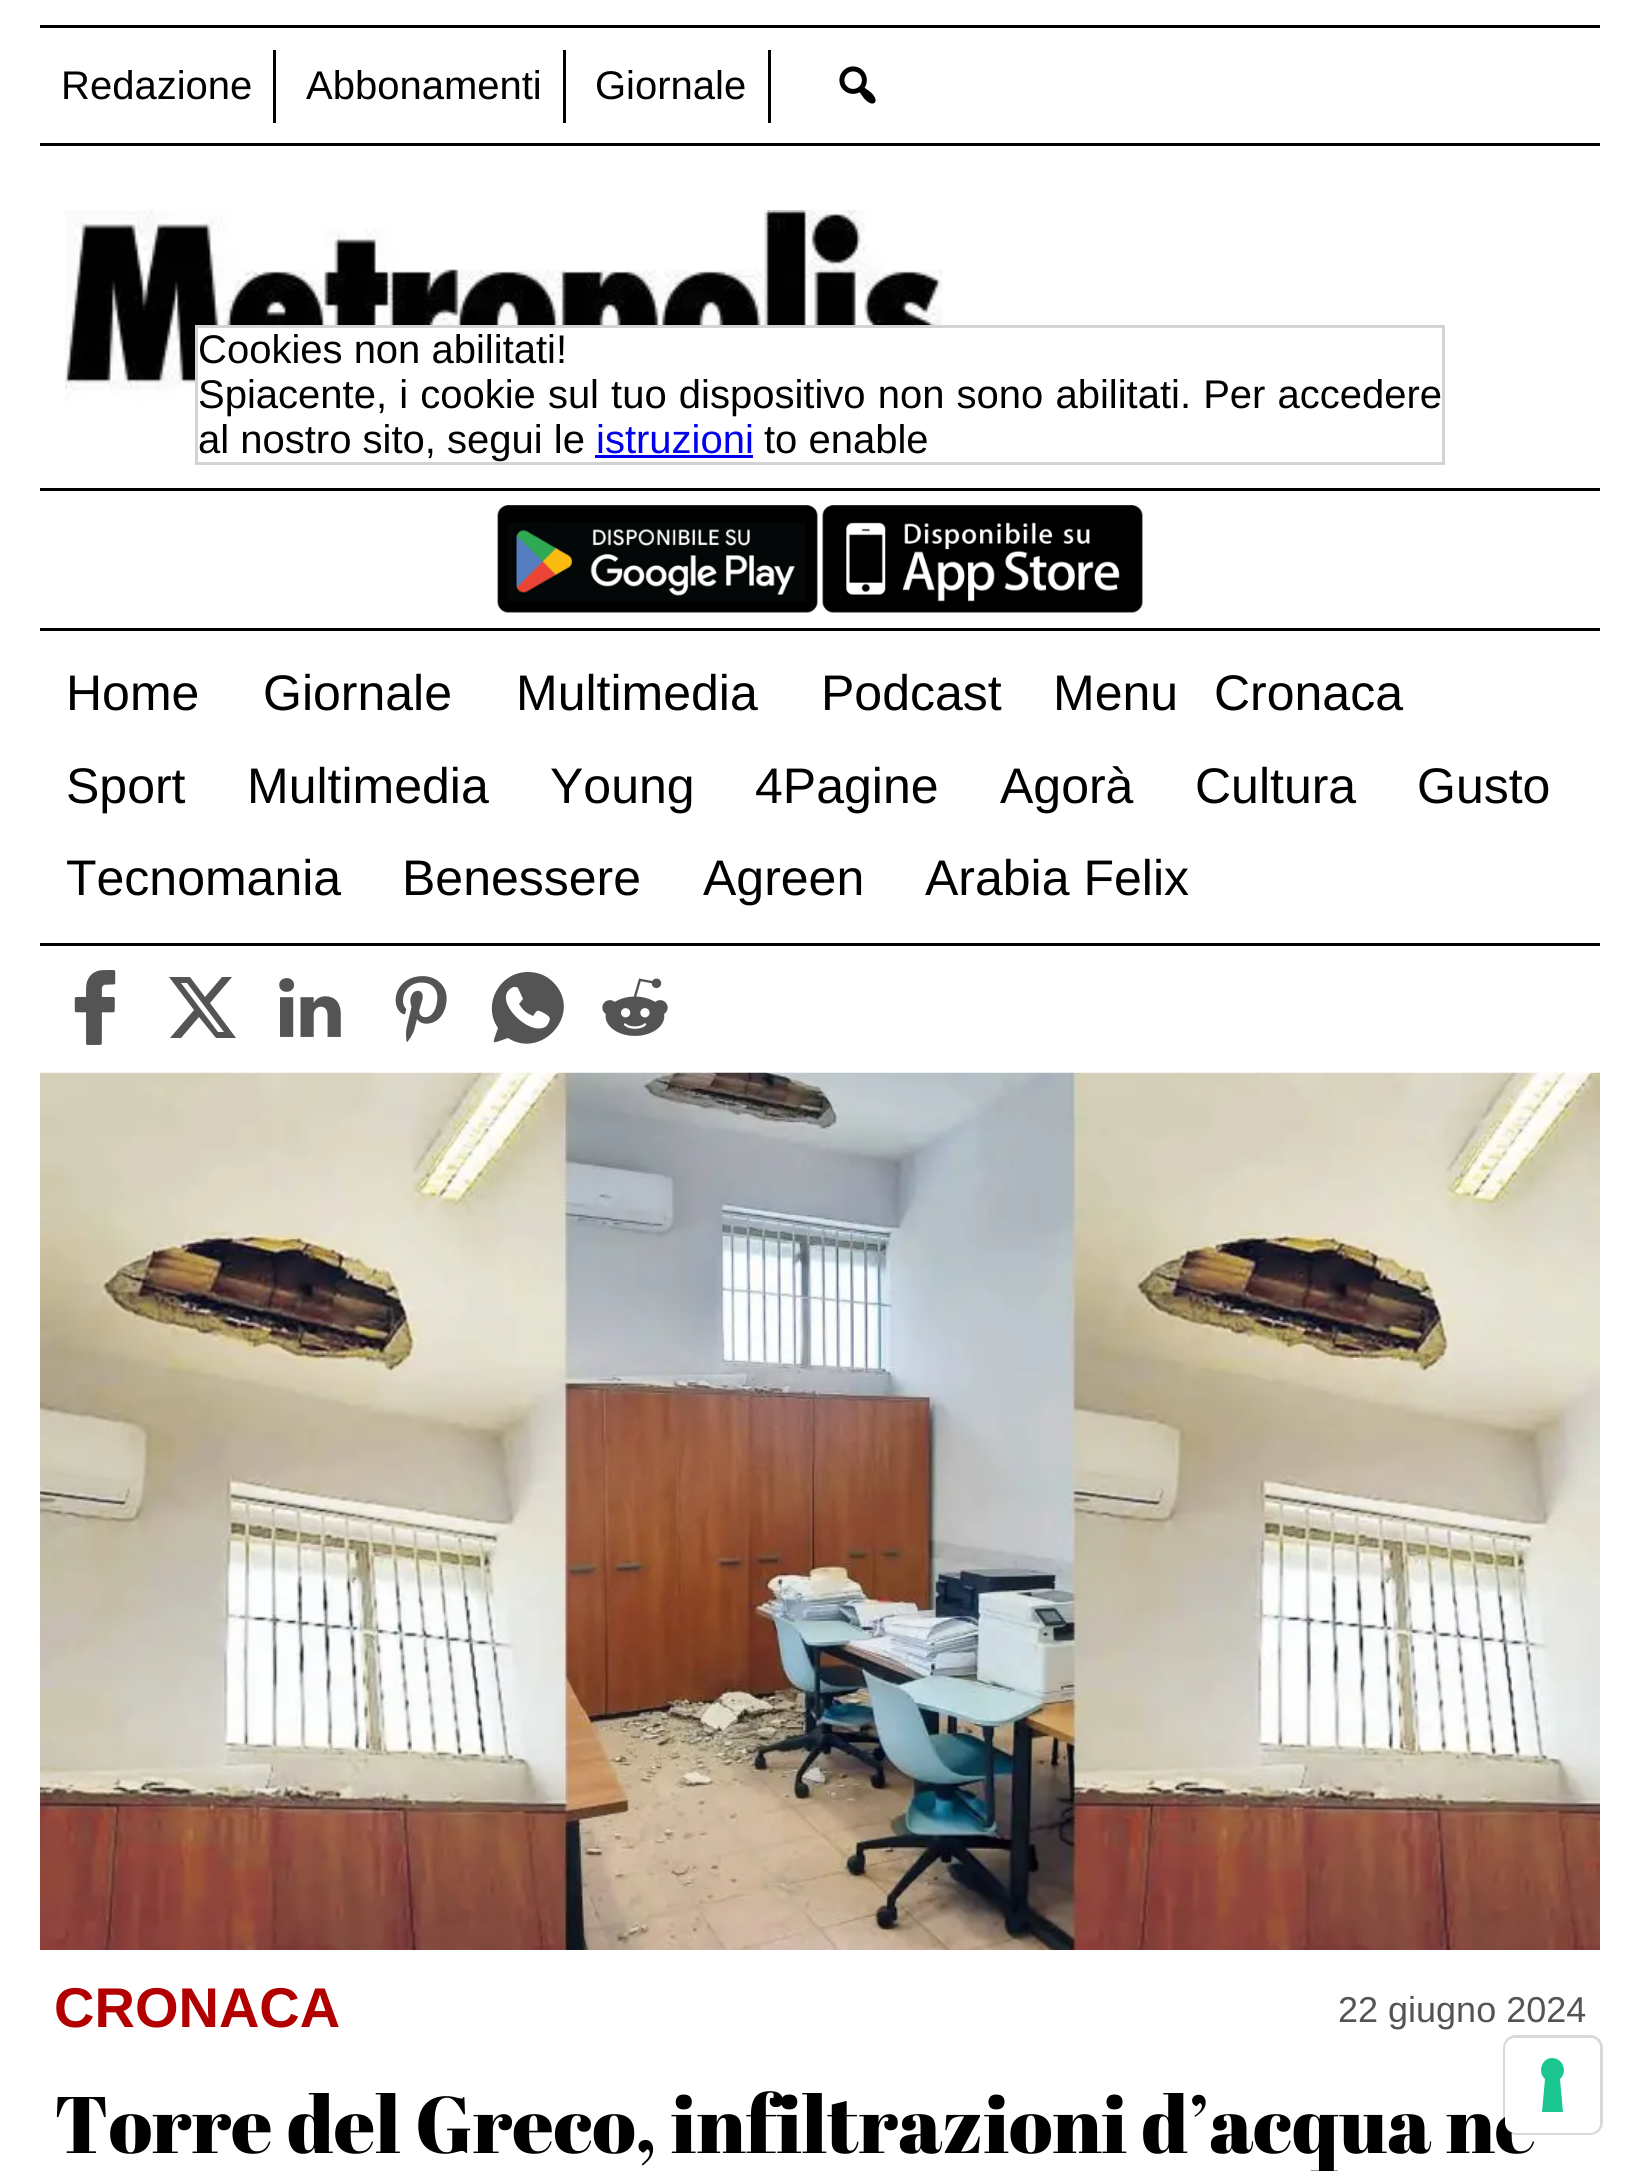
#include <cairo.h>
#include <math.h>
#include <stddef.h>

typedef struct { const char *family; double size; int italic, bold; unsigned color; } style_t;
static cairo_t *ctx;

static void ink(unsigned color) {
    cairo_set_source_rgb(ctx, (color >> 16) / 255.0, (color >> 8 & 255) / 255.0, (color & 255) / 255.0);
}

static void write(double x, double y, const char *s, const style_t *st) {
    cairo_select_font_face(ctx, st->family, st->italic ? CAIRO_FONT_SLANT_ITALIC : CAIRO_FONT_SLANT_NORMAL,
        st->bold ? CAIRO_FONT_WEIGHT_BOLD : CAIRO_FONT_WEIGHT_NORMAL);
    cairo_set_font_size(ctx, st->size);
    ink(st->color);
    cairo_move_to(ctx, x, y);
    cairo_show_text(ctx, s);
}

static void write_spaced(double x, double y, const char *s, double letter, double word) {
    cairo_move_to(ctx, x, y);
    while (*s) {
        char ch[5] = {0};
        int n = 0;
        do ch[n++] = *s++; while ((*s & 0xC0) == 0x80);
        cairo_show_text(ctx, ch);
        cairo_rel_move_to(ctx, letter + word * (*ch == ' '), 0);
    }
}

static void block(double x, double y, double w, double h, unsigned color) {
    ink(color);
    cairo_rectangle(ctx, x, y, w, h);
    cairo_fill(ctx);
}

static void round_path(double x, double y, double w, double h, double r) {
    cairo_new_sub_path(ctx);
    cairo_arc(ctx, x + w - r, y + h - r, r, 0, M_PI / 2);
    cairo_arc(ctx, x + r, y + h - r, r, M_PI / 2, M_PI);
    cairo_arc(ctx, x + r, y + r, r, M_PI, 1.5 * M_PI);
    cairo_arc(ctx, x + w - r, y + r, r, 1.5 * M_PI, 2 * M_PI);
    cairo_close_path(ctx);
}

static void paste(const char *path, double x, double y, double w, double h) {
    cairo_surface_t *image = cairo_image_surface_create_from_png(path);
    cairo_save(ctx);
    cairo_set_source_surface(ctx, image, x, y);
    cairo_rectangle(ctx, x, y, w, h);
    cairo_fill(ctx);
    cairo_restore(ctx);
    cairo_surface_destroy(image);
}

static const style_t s1 = {"Liberation Sans", 40, 0, 0, 0x000000};
static const style_t s2 = {"Liberation Sans", 50, 0, 0, 0x000000};
static const style_t s3 = {"Liberation Sans", 56, 0, 1, 0xb20000};
static const style_t s4 = {"Liberation Sans", 36, 0, 0, 0x545454};
static const style_t s5 = {"Abril Fatface", 80, 0, 0, 0x000000};
static const style_t s6 = {"Liberation Sans", 40, 0, 0, 0x0000ee};

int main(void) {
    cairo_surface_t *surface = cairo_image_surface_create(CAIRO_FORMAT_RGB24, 1639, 2171);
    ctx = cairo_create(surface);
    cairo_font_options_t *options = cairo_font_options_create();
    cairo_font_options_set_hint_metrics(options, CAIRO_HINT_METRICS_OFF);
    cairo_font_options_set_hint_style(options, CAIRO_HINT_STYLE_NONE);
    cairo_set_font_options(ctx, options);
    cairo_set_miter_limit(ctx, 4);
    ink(0xffffff);
    cairo_paint(ctx);
    block(40, 25, 1560, 3, 0x000000);
    block(40, 143, 1560, 3, 0x000000);
    block(273, 50, 3, 73, 0x000000);
    write(61, 99, "Redazione", &s1);
    block(563, 50, 3, 73, 0x000000);
    write(306, 99, "Abbonamenti", &s1);
    block(768, 50, 3, 73, 0x000000);
    write(595, 99, "Giornale", &s1);
    paste("pic1.png", 839, 66, 37, 38);
    paste("pic2.png", 65, 210, 878, 220);
    block(40, 488, 1560, 3, 0x000000);
    paste("pic3.png", 497, 505, 321, 108);
    paste("pic4.png", 822, 505, 321, 108);
    block(40, 628, 1560, 3, 0x000000);
    block(40, 943, 1560, 3, 0x000000);
    write(263, 710, "Giornale", &s2);
    write(516, 710, "Multimedia", &s2);
    write(821, 710, "Podcast", &s2);
    write(1214, 710, "Cronaca", &s2);
    write(66, 803, "Sport", &s2);
    write(247, 803, "Multimedia", &s2);
    write(550, 803, "Young", &s2);
    write(755, 803, "4Pagine", &s2);
    write(1000, 803, "Agorà", &s2);
    write(1195, 803, "Cultura", &s2);
    write(1417, 803, "Gusto", &s2);
    write(66, 895, "Tecnomania", &s2);
    write(402, 895, "Benessere", &s2);
    write(703, 895, "Agreen", &s2);
    write(925, 895, "Arabia Felix", &s2);
    write(1053, 710, "Menu", &s2);
    write(66, 710, "Home", &s2);
    paste("pic5.png", 74, 970, 42, 75);
    ink(0x545454);
    cairo_new_path(ctx);
    cairo_move_to(ctx, 222, 977);
    cairo_line_to(ctx, 232, 977);
    cairo_line_to(ctx, 210, 1003);
    cairo_line_to(ctx, 236, 1038);
    cairo_line_to(ctx, 216, 1038);
    cairo_line_to(ctx, 199, 1017);
    cairo_line_to(ctx, 181, 1038);
    cairo_line_to(ctx, 170, 1038);
    cairo_line_to(ctx, 194, 1010);
    cairo_line_to(ctx, 169, 977);
    cairo_line_to(ctx, 190, 977);
    cairo_line_to(ctx, 205, 997);
    cairo_close_path(ctx);
    cairo_move_to(ctx, 218, 1032);
    cairo_line_to(ctx, 224, 1032);
    cairo_line_to(ctx, 187, 983);
    cairo_line_to(ctx, 181, 983);
    cairo_close_path(ctx);
    cairo_fill(ctx);
    paste("pic6.png", 279, 978, 62, 59);
    paste("pic7.png", 395, 976, 52, 66);
    cairo_new_path(ctx);
    cairo_move_to(ctx, 528, 972);
    cairo_curve_to(ctx, 499, 972, 482, 1005, 498, 1028);
    cairo_curve_to(ctx, 492, 1046, 490, 1044, 508, 1038);
    cairo_curve_to(ctx, 542, 1060, 584, 1013, 553, 982);
    cairo_curve_to(ctx, 546, 975, 537, 972, 528, 972);
    cairo_close_path(ctx);
    cairo_move_to(ctx, 549, 1022);
    cairo_curve_to(ctx, 548, 1024, 547, 1026, 545, 1027);
    cairo_curve_to(ctx, 529, 1036, 494, 1002, 510, 989);
    cairo_curve_to(ctx, 512, 987, 516, 986, 518, 988);
    cairo_line_to(ctx, 523, 999);
    cairo_line_to(ctx, 519, 1004);
    cairo_curve_to(ctx, 522, 1009, 526, 1013, 531, 1015);
    cairo_line_to(ctx, 533, 1016);
    cairo_curve_to(ctx, 534, 1015, 537, 1009, 539, 1011);
    cairo_curve_to(ctx, 541, 1011, 548, 1015, 549, 1017);
    cairo_curve_to(ctx, 550, 1017, 550, 1020, 549, 1022);
    cairo_close_path(ctx);
    cairo_fill(ctx);
    paste("pic8.png", 602, 978, 66, 58);
    paste("pic9.png", 40, 1072, 1560, 878);
    write(54, 2027, "CRONACA", &s3);
    write(1338, 2022, "22 giugno 2024", &s4);
    write(54, 2153, "Torre del Greco, infiltrazioni d’acqua ne", &s5);
    block(198, 328, 745, 102, 0xffffff);
    cairo_rectangle(ctx, 196.5, 326.5, 1247, 137);
    ink(0xd3d3d3);
    cairo_set_line_width(ctx, 3);
    cairo_stroke(ctx);
    write(198, 363, "Cookies non abilitati!", &s1);
    write_spaced(198, 408, "Spiacente, i cookie sul tuo dispositivo non sono abilitati. Per accedere", 0, 1);
    write(198, 453, "al nostro sito, segui le", &s1);
    write(596, 453, "istruzioni", &s6);
    block(595, 455, 158, 3, 0x0000ee);
    write(764, 453, "to enable", &s1);
    round_path(1504.5, 2036.5, 97, 97, 11.5);
    cairo_set_source_rgba(ctx, 0, 0, 0, 0.15);
    cairo_stroke(ctx);
    ink(0xffffff);
    round_path(1505, 2038, 95, 95, 10);
    cairo_fill(ctx);
    ink(0x1cc691);
    cairo_set_fill_rule(ctx, CAIRO_FILL_RULE_EVEN_ODD);
    cairo_new_path(ctx);
    cairo_move_to(ctx, 1552, 2058);
    cairo_curve_to(ctx, 1563, 2058, 1568, 2072, 1560, 2079);
    cairo_line_to(ctx, 1563, 2112);
    cairo_line_to(ctx, 1542, 2112);
    cairo_line_to(ctx, 1545, 2079);
    cairo_curve_to(ctx, 1537, 2072, 1542, 2058, 1552, 2058);
    cairo_close_path(ctx);
    cairo_fill(ctx);
    cairo_surface_write_to_png(surface, "screenshot.png");
    cairo_font_options_destroy(options);
    cairo_destroy(ctx);
    cairo_surface_destroy(surface);
    return 0;
}
